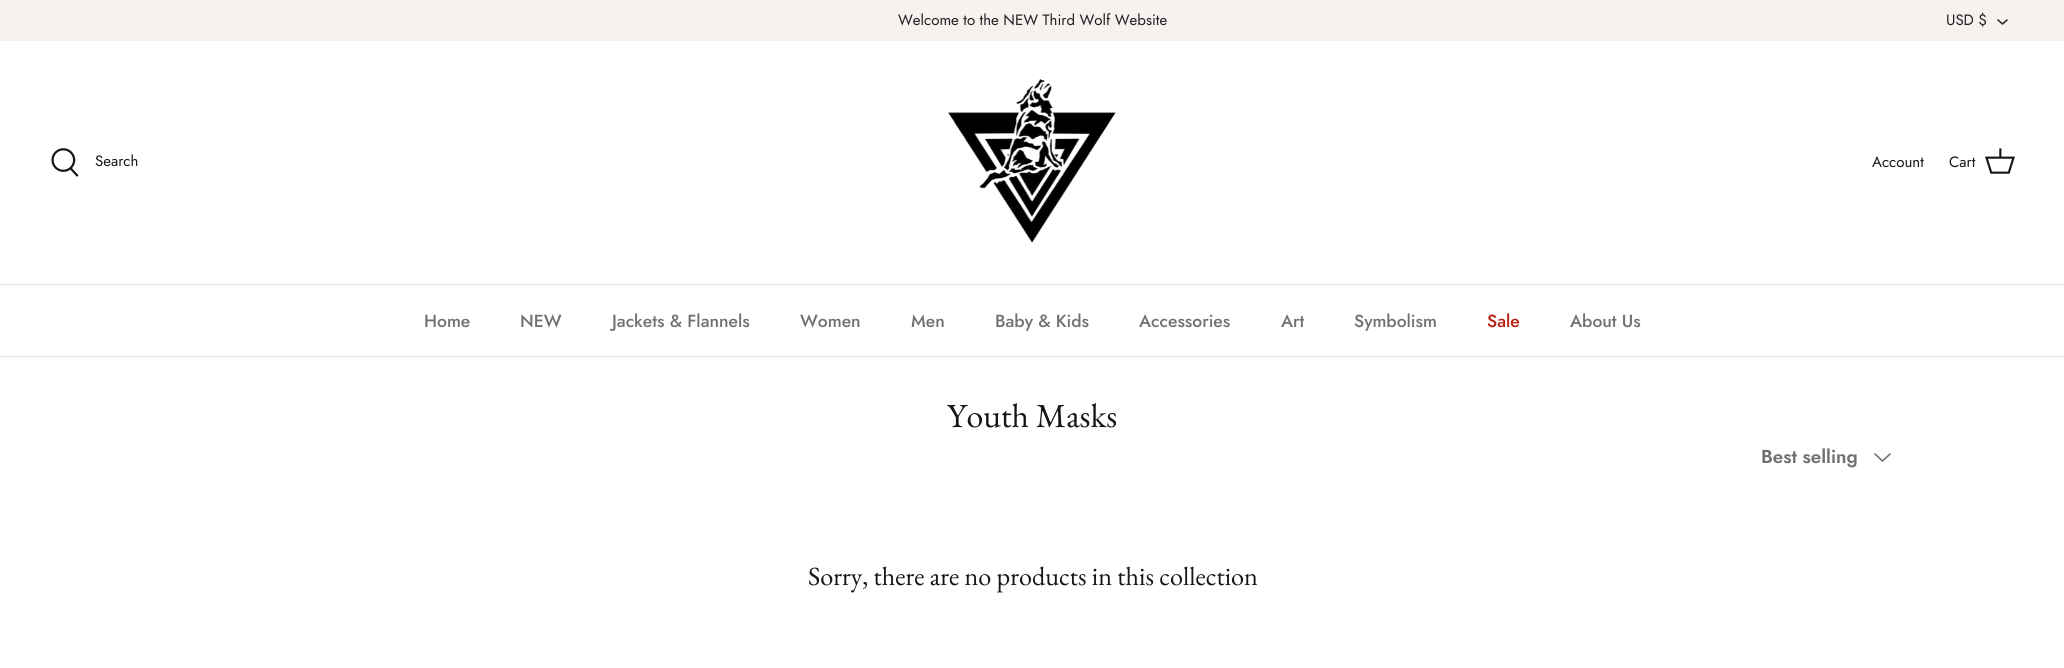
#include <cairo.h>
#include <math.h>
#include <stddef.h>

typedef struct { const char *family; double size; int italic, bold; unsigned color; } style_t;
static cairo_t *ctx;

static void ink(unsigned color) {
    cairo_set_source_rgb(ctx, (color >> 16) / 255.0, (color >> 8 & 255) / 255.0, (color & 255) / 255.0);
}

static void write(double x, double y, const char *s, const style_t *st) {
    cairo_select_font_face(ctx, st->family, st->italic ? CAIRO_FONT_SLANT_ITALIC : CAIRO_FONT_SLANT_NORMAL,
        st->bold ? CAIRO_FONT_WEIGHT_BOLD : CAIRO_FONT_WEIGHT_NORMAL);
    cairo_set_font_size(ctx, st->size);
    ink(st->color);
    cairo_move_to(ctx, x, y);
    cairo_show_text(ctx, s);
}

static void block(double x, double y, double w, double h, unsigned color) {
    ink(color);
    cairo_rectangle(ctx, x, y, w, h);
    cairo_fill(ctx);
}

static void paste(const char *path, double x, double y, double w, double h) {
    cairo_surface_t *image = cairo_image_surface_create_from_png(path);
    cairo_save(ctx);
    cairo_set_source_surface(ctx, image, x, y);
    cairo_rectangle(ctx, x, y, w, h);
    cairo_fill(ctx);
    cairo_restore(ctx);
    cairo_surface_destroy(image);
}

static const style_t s1 = {"Jost", 15, 0, 0, 0x212121};
static const style_t s2 = {"Jost", 15, 0, 0, 0x171717};
static const style_t s3 = {"Jost Medium", 17.5, 0, 0, 0x707173};
static const style_t s4 = {"Jost Medium", 17.5, 0, 0, 0xb61d0f};
static const style_t s5 = {"EB Garamond", 33.75, 0, 0, 0x171717};
static const style_t s6 = {"Jost SemiBold", 18.75, 0, 0, 0x707173};
static const style_t s7 = {"EB Garamond", 26.25, 0, 0, 0x171717};

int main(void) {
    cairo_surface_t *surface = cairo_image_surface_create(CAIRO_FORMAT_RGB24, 2064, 668);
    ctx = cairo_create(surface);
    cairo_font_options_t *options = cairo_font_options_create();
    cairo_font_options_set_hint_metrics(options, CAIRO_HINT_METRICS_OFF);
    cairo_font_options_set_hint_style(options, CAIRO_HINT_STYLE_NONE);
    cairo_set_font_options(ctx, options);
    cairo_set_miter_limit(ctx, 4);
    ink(0xffffff);
    cairo_paint(ctx);
    block(0, 0, 2064, 41, 0xf7f1f0);
    write(898, 25, "Welcome to the NEW Third Wolf Website", &s1);
    write(1946, 25, "USD $", &s1);
    cairo_new_path(ctx);
    cairo_move_to(ctx, 1998, 20);
    cairo_line_to(ctx, 2002.5, 24);
    cairo_line_to(ctx, 2007, 20);
    cairo_set_line_width(ctx, 1.5);
    cairo_set_line_cap(ctx, CAIRO_LINE_CAP_ROUND);
    cairo_set_line_join(ctx, CAIRO_LINE_JOIN_ROUND);
    cairo_stroke(ctx);
    block(0, 284, 2064, 1, 0xdfe3e8);
    paste("pic1.png", 51, 148, 28, 29);
    write(95, 166, "Search", &s2);
    paste("pic2.png", 948, 79, 168, 164);
    write(1872, 167, "Account", &s2);
    write(1949, 167, "Cart", &s2);
    paste("pic3.png", 1985, 148, 30, 26);
    block(0, 356, 2064, 1, 0xdfe3e8);
    write(424, 327, "Home", &s3);
    write(520, 327, "NEW", &s3);
    write(612, 327, "Jackets & Flannels", &s3);
    write(800, 327, "Women", &s3);
    write(911, 327, "Men", &s3);
    write(995, 327, "Baby & Kids", &s3);
    write(1139, 327, "Accessories", &s3);
    write(1281, 327, "Art", &s3);
    write(1354, 327, "Symbolism", &s3);
    write(1487, 327, "Sale", &s4);
    write(1570, 327, "About Us", &s3);
    write(947, 427, "Youth Masks", &s5);
    write(1761, 463, "Best selling", &s6);
    cairo_new_path(ctx);
    cairo_move_to(ctx, 1875, 454);
    cairo_line_to(ctx, 1882.5, 461);
    cairo_line_to(ctx, 1890, 454);
    cairo_set_line_width(ctx, 1.6);
    cairo_stroke(ctx);
    write(808, 585, "Sorry, there are no products in this collection", &s7);
    cairo_surface_write_to_png(surface, "screenshot.png");
    cairo_font_options_destroy(options);
    cairo_destroy(ctx);
    cairo_surface_destroy(surface);
    return 0;
}
